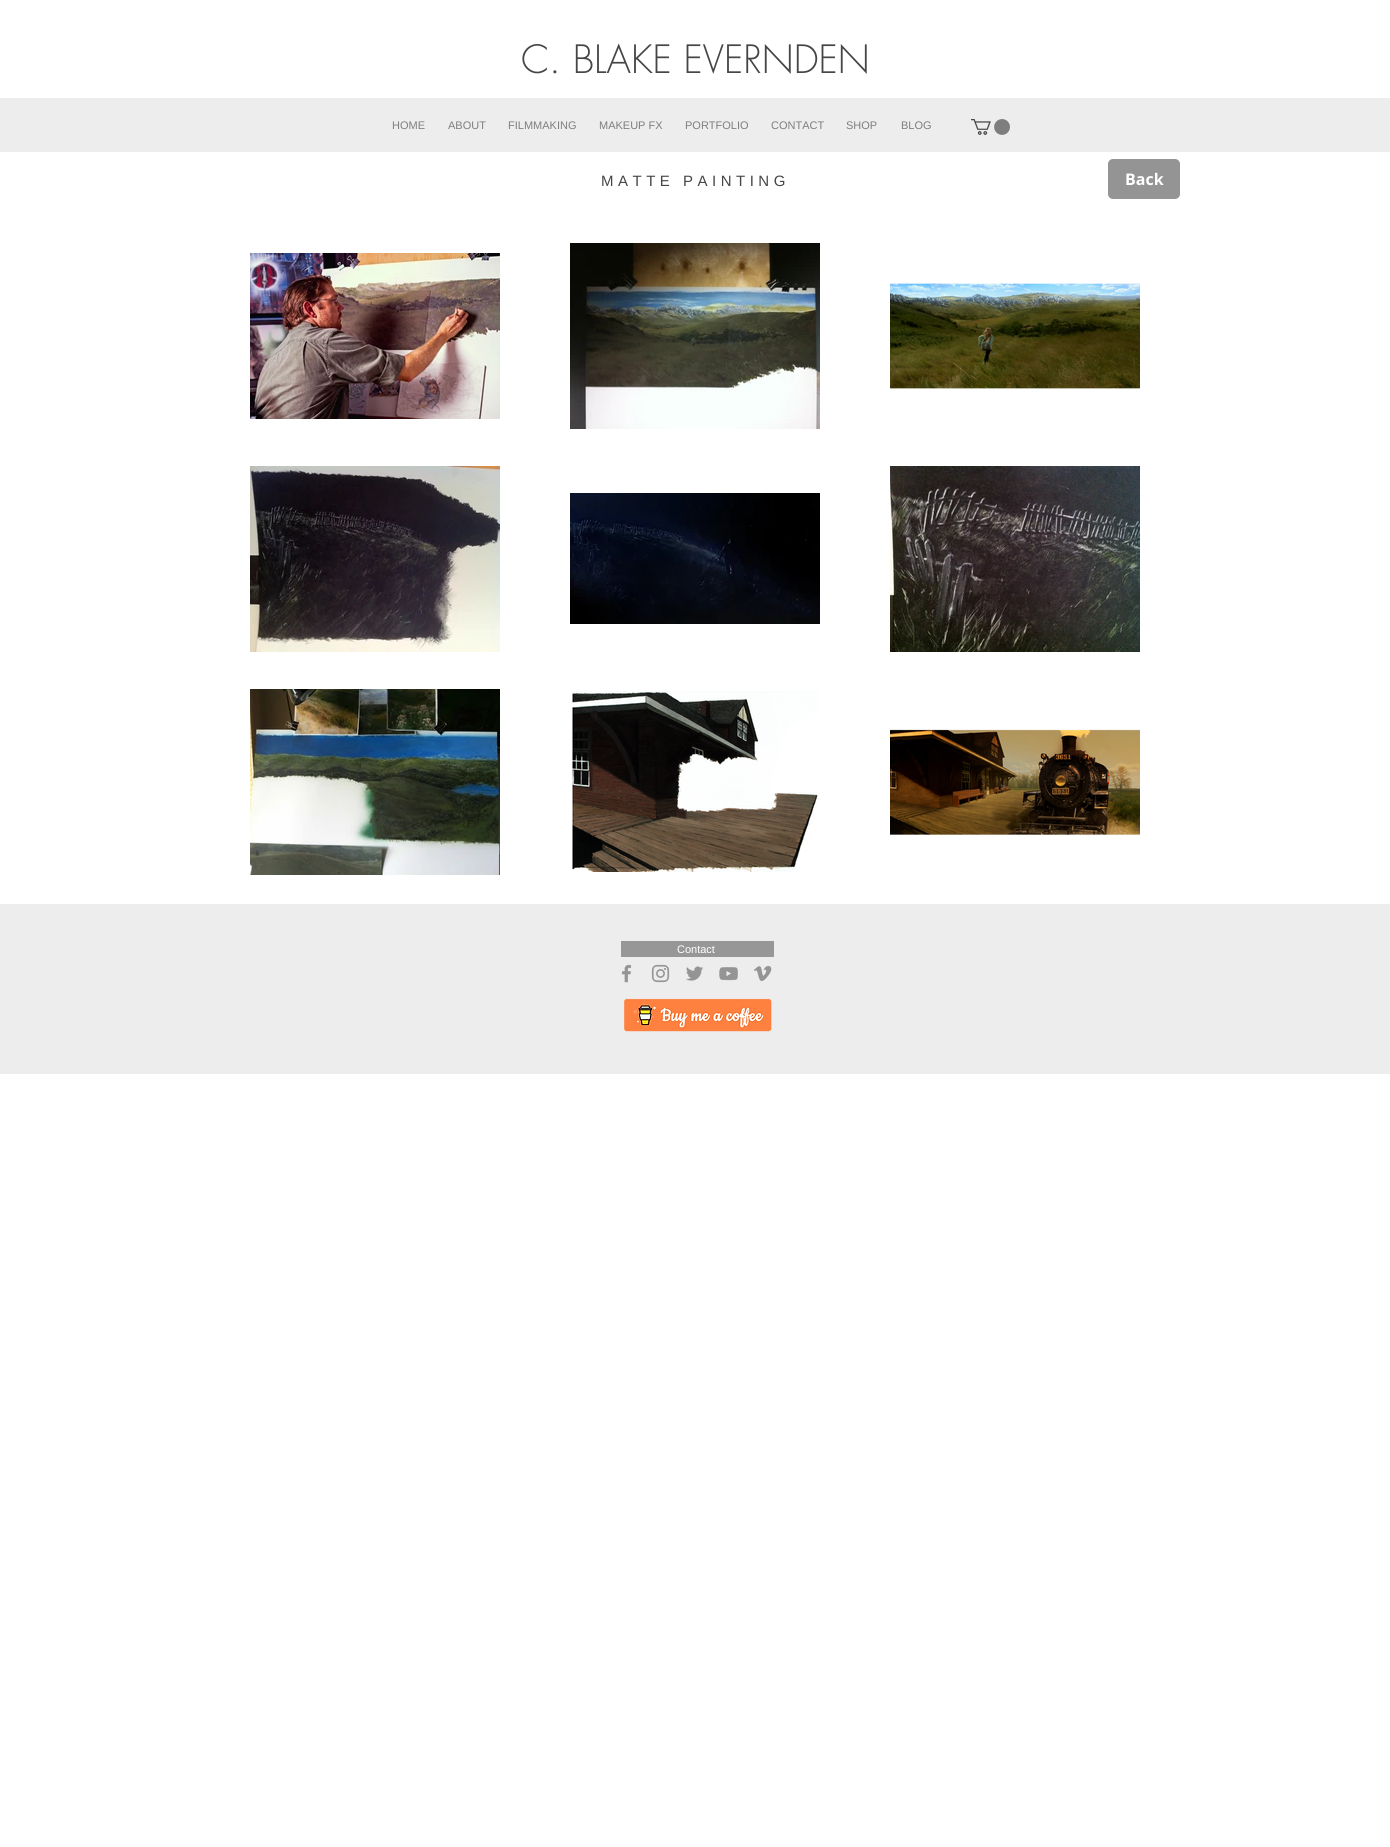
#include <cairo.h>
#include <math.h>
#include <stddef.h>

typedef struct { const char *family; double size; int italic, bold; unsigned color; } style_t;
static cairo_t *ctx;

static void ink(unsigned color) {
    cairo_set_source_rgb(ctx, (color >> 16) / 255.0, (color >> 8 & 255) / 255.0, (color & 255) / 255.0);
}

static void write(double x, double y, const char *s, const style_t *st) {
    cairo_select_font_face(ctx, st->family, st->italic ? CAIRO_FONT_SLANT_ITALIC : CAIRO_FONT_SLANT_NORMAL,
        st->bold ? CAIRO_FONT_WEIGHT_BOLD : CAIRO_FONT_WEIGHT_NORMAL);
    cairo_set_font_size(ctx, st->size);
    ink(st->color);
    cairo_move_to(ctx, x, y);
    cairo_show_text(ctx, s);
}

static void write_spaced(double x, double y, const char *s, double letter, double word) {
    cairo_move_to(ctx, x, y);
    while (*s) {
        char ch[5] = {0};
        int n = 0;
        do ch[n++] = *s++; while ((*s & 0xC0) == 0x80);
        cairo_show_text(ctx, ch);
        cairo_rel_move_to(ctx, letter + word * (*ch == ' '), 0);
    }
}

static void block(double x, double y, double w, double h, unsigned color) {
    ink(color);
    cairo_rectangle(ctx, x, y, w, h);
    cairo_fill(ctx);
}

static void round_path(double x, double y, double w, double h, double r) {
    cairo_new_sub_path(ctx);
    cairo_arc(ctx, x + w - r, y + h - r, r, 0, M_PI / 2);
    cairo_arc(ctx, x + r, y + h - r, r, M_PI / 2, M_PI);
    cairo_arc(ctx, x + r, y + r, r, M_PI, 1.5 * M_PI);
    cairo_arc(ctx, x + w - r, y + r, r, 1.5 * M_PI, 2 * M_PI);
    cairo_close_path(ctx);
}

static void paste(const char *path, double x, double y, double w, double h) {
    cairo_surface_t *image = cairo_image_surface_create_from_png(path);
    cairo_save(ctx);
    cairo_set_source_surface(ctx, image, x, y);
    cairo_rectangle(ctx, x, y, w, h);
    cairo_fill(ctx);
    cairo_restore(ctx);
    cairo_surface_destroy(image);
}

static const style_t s1 = {"futura Light", 38, 0, 0, 0x464646};
static const style_t s2 = {"Liberation Sans", 11, 0, 0, 0x7f7e7e};
static const style_t s3 = {"Open Sans", 16, 0, 1, 0xffffff};
static const style_t s4 = {"Liberation Sans", 11, 0, 0, 0xffffff};

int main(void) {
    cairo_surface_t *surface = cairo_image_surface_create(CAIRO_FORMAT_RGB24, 1390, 1847);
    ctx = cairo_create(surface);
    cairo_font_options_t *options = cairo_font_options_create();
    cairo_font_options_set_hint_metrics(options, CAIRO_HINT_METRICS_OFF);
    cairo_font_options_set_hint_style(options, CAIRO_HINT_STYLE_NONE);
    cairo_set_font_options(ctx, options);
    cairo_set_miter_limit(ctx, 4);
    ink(0xffffff);
    cairo_paint(ctx);
    write(521, 73, "C. BLAKE EVERNDEN", &s1);
    block(0, 98, 1390, 54, 0xededed);
    write(392, 129, "HOME", &s2);
    write(448, 129, "ABOUT", &s2);
    write(508, 129, "FILMMAKING", &s2);
    write(599, 129, "MAKEUP FX", &s2);
    write(685, 129, "PORTFOLIO", &s2);
    write(771, 129, "CONTACT", &s2);
    write(846, 129, "SHOP", &s2);
    write(901, 129, "BLOG", &s2);
    paste("pic1.png", 971, 119, 39, 16);
    cairo_set_font_size(ctx, 15);
    ink(0x464646);
    write_spaced(601, 186, "MATTE PAINTING", 4.5, 0);
    ink(0x949494);
    round_path(1108, 159, 72, 40, 5);
    cairo_fill(ctx);
    write(1125, 185, "Back", &s3);
    paste("pic2.png", 250, 253, 250, 166);
    paste("pic3.png", 570, 243, 250, 186);
    paste("pic4.png", 890, 283, 250, 106);
    paste("pic5.png", 250, 466, 250, 186);
    paste("pic6.png", 570, 493, 250, 131);
    paste("pic7.png", 890, 466, 250, 186);
    paste("pic8.png", 250, 689, 250, 186);
    paste("pic9.png", 572, 691, 247, 181);
    paste("pic10.png", 890, 729, 250, 106);
    block(0, 904, 1390, 170, 0xededed);
    block(621, 941, 153, 16, 0x979797);
    write(677, 953, "Contact", &s4);
    paste("pic11.png", 621, 964, 11, 19);
    paste("pic12.png", 651, 964, 19, 19);
    paste("pic13.png", 686, 966, 17, 15);
    paste("pic14.png", 719, 967, 19, 14);
    paste("pic15.png", 754, 965, 18, 17);
    paste("pic16.png", 624, 998, 148, 34);
    cairo_surface_write_to_png(surface, "screenshot.png");
    cairo_font_options_destroy(options);
    cairo_destroy(ctx);
    cairo_surface_destroy(surface);
    return 0;
}
